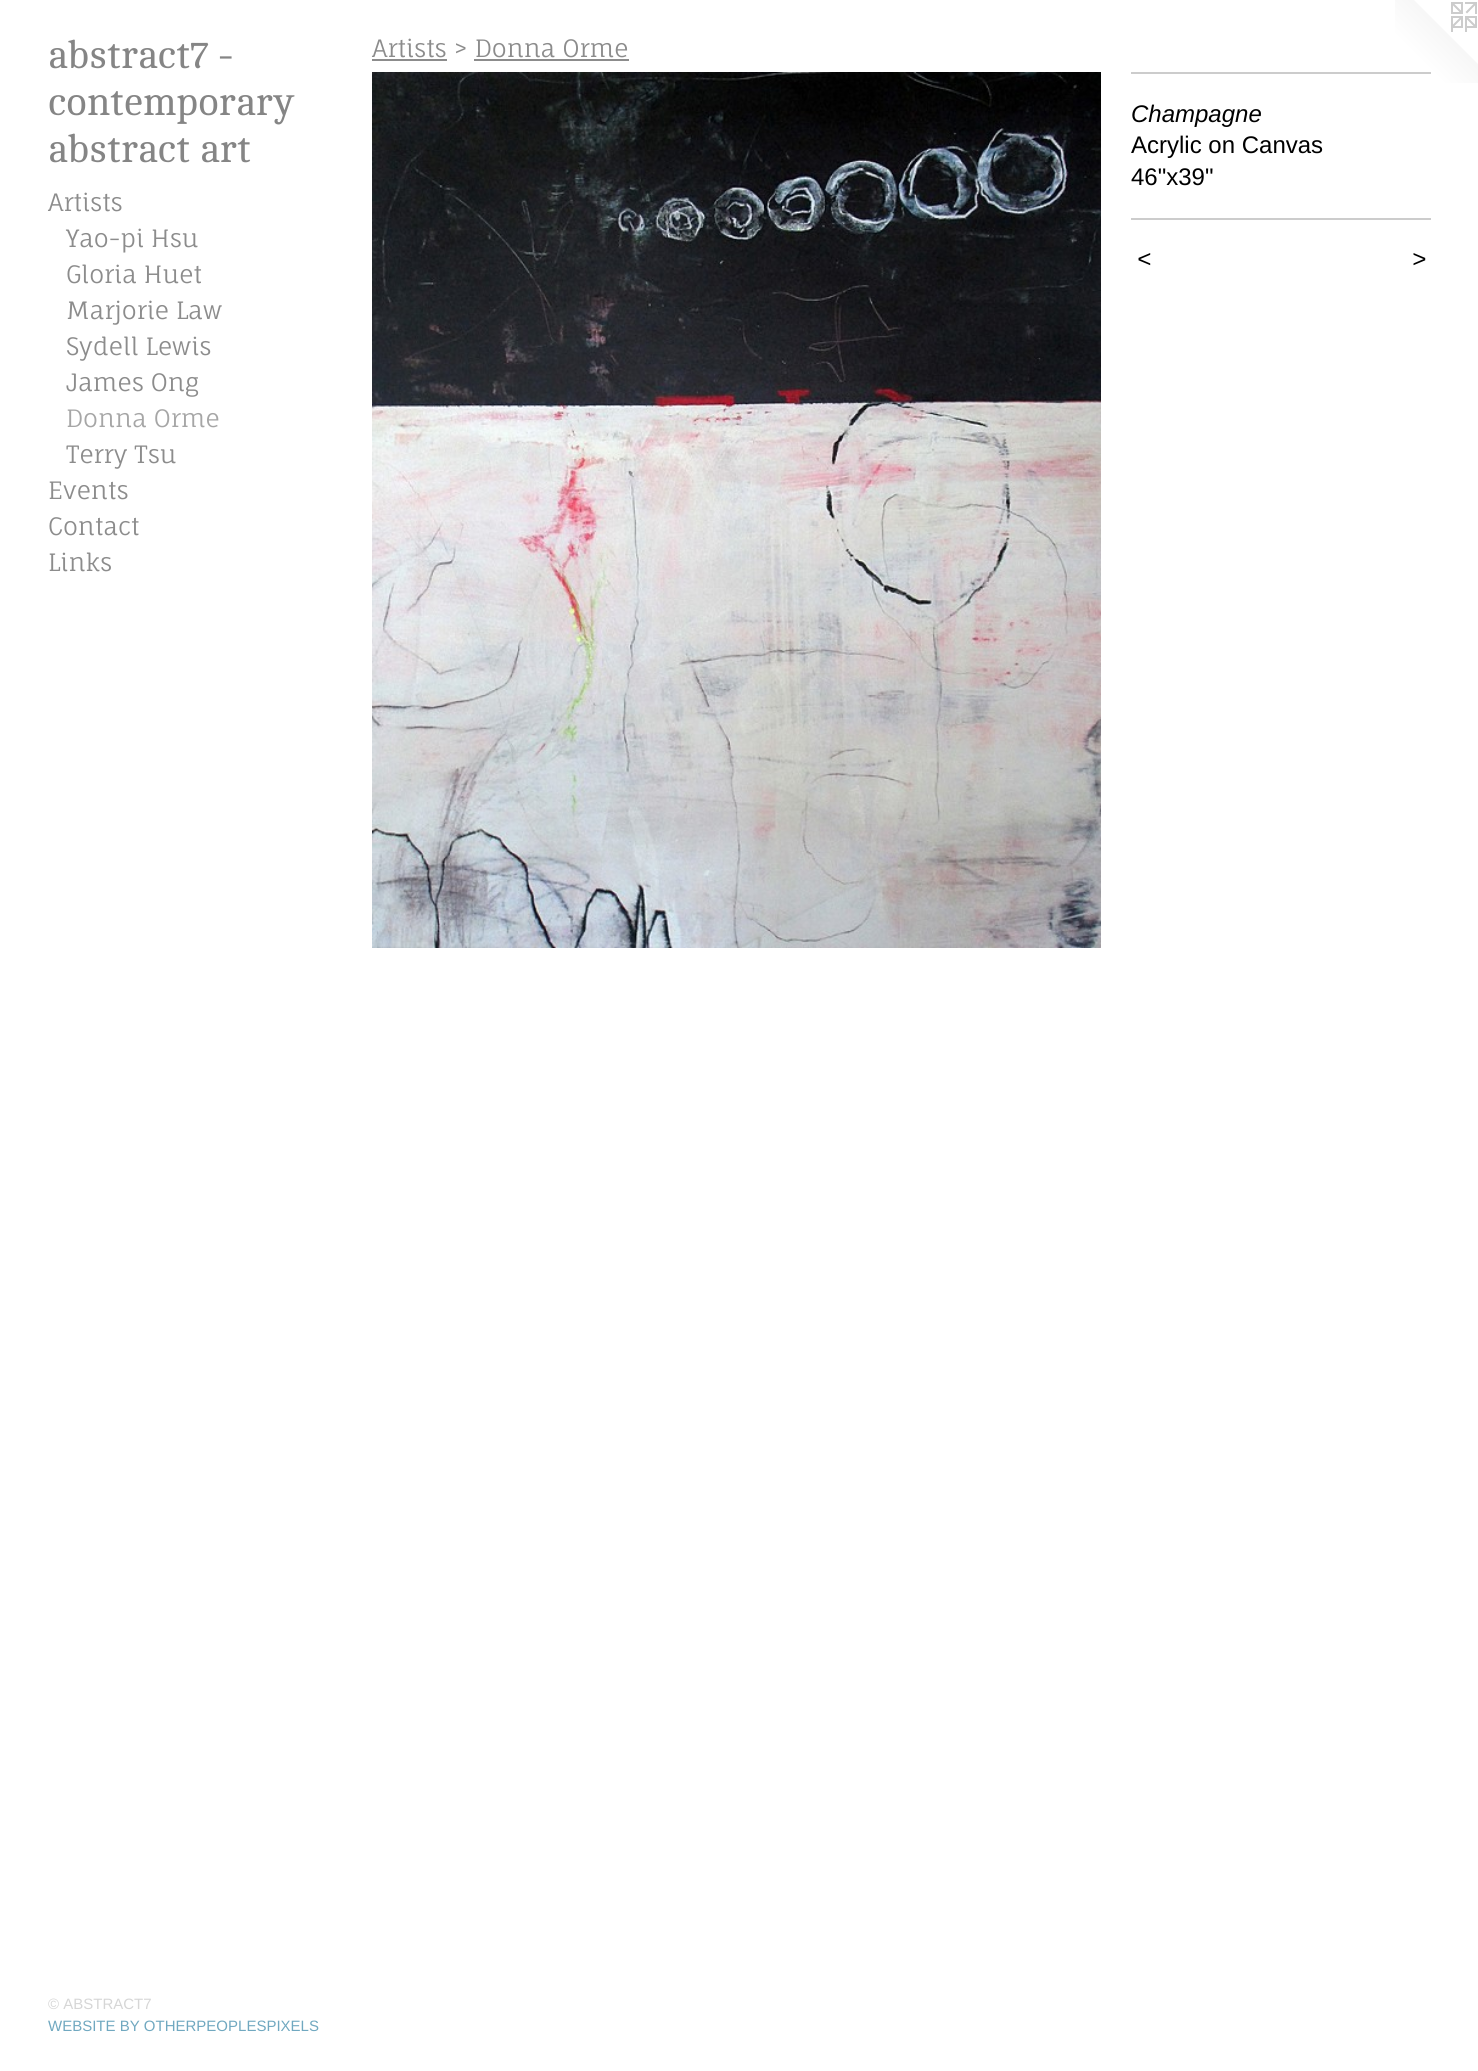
#include <cairo.h>
#include <math.h>
#include <stddef.h>

typedef struct { const char *family; double size; int italic, bold; unsigned color; } style_t;
static cairo_t *ctx;

static void ink(unsigned color) {
    cairo_set_source_rgb(ctx, (color >> 16) / 255.0, (color >> 8 & 255) / 255.0, (color & 255) / 255.0);
}

static void write(double x, double y, const char *s, const style_t *st) {
    cairo_select_font_face(ctx, st->family, st->italic ? CAIRO_FONT_SLANT_ITALIC : CAIRO_FONT_SLANT_NORMAL,
        st->bold ? CAIRO_FONT_WEIGHT_BOLD : CAIRO_FONT_WEIGHT_NORMAL);
    cairo_set_font_size(ctx, st->size);
    ink(st->color);
    cairo_move_to(ctx, x, y);
    cairo_show_text(ctx, s);
}

static void write_spaced(double x, double y, const char *s, double letter, double word) {
    cairo_move_to(ctx, x, y);
    while (*s) {
        char ch[5] = {0};
        int n = 0;
        do ch[n++] = *s++; while ((*s & 0xC0) == 0x80);
        cairo_show_text(ctx, ch);
        cairo_rel_move_to(ctx, letter + word * (*ch == ' '), 0);
    }
}

static void block(double x, double y, double w, double h, unsigned color) {
    ink(color);
    cairo_rectangle(ctx, x, y, w, h);
    cairo_fill(ctx);
}

static void paste(const char *path, double x, double y, double w, double h) {
    cairo_surface_t *image = cairo_image_surface_create_from_png(path);
    cairo_save(ctx);
    cairo_set_source_surface(ctx, image, x, y);
    cairo_rectangle(ctx, x, y, w, h);
    cairo_fill(ctx);
    cairo_restore(ctx);
    cairo_surface_destroy(image);
}

static const style_t s1 = {"Cambo", 39, 0, 0, 0x858585};
static const style_t s2 = {"Fauna One", 24, 0, 0, 0x8c8c8c};
static const style_t s3 = {"Fauna One", 24, 0, 0, 0xa6a6a6};
static const style_t s4 = {"Liberation Sans", 15, 0, 0, 0xd6d6d6};
static const style_t s5 = {"Liberation Sans", 15, 0, 0, 0x70a8c0};
static const style_t s6 = {"Liberation Sans", 24, 1, 0, 0x000000};
static const style_t s7 = {"Liberation Sans", 24, 0, 0, 0x000000};

int main(void) {
    cairo_surface_t *surface = cairo_image_surface_create(CAIRO_FORMAT_RGB24, 1478, 2071);
    ctx = cairo_create(surface);
    cairo_font_options_t *options = cairo_font_options_create();
    cairo_font_options_set_hint_metrics(options, CAIRO_HINT_METRICS_OFF);
    cairo_font_options_set_hint_style(options, CAIRO_HINT_STYLE_NONE);
    cairo_set_font_options(ctx, options);
    cairo_set_miter_limit(ctx, 4);
    ink(0xffffff);
    cairo_paint(ctx);
    write(48, 68, "abstract7 -", &s1);
    write(48, 115, "contemporary", &s1);
    write(48, 162, "abstract art", &s1);
    write(48, 211, "Artists", &s2);
    write(66, 247, "Yao-pi Hsu", &s2);
    write(66, 283, "Gloria Huet", &s2);
    write(66, 319, "Marjorie Law", &s2);
    write(66, 355, "Sydell Lewis", &s2);
    write(66, 391, "James Ong", &s2);
    write(66, 427, "Donna Orme", &s3);
    write(66, 463, "Terry Tsu", &s2);
    write(48, 499, "Events", &s2);
    write(48, 535, "Contact", &s2);
    write(48, 571, "Links", &s2);
    write(48, 2009, "© ABSTRACT7", &s4);
    write(48, 2031, "WEBSITE BY OTHERPEOPLESPIXELS", &s5);
    write(372, 57, "Artists > Donna Orme", &s2);
    block(372, 59, 75, 2, 0x8c8c8c);
    block(474, 59, 155, 2, 0x8c8c8c);
    paste("pic1.png", 372, 72, 729, 876);
    paste("pic2.png", 1395, 0, 83, 83);
    block(1131, 72, 300, 2, 0xcccccc);
    write(1131, 122, "Champagne", &s6);
    write(1131, 153, "Acrylic on Canvas", &s7);
    write(1131, 185, "46\"x39\"", &s7);
    block(1131, 218, 300, 2, 0xcccccc);
    cairo_select_font_face(ctx, "Liberation Sans", CAIRO_FONT_SLANT_ITALIC, CAIRO_FONT_WEIGHT_NORMAL);
    ink(0x000000);
    write_spaced(1137, 267, "<", 2, 0);
    write_spaced(1412, 267, ">", 2, 0);
    cairo_surface_write_to_png(surface, "screenshot.png");
    cairo_font_options_destroy(options);
    cairo_destroy(ctx);
    cairo_surface_destroy(surface);
    return 0;
}
